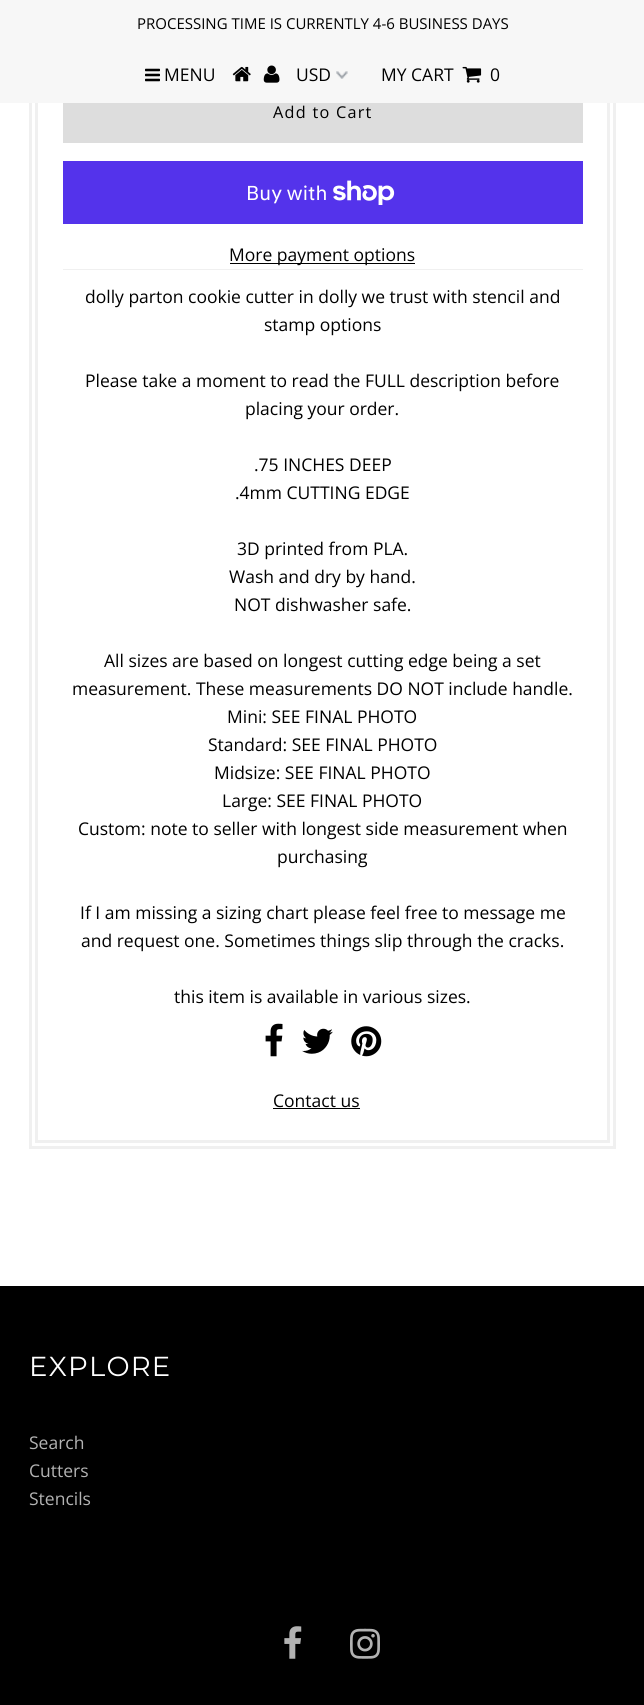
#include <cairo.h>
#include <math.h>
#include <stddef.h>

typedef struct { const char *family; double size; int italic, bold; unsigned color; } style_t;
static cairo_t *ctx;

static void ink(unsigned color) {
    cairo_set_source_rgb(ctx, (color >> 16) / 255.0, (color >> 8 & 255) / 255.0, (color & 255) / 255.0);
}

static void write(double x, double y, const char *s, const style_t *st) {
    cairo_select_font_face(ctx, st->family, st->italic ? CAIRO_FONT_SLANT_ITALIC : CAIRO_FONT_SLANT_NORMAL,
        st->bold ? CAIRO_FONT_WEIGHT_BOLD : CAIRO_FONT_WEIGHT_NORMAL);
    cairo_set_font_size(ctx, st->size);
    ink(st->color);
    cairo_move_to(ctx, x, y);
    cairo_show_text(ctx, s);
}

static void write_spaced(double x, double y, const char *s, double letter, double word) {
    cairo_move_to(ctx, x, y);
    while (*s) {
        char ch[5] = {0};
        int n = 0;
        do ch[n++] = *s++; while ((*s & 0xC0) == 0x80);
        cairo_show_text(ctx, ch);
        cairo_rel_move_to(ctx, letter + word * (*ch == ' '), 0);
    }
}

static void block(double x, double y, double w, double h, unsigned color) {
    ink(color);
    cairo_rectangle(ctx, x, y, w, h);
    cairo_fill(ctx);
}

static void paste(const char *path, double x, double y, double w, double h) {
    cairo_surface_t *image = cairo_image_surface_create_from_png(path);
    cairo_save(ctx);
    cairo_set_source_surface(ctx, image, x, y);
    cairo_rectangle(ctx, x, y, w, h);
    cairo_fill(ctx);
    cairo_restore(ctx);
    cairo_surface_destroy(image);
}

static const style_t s1 = {"Open Sans", 15, 0, 0, 0x000000};
static const style_t s2 = {"Open Sans", 17.5, 0, 0, 0x000000};
static const style_t s3 = {"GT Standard", 20, 0, 0, 0xffffff};
static const style_t s4 = {"Open Sans", 17.5, 0, 0, 0xb3b3b3};

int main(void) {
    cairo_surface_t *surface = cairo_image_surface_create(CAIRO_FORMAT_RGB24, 644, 1705);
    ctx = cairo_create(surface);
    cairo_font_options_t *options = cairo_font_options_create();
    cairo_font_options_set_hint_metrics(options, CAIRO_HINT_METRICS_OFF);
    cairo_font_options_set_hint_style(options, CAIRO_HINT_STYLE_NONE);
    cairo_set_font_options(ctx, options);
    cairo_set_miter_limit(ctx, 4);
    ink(0xffffff);
    cairo_paint(ctx);
    cairo_rectangle(ctx, 30.5, -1.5, 584, 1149);
    ink(0xf0f0f0);
    cairo_set_line_width(ctx, 3);
    cairo_stroke(ctx);
    cairo_rectangle(ctx, 36.5, -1.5, 572, 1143);
    cairo_stroke(ctx);
    block(0, 0, 644, 103, 0xf7f7f7);
    write(137, 29, "PROCESSING TIME IS CURRENTLY 4-6 BUSINESS DAYS", &s1);
    paste("pic1.png", 145, 68, 15, 14);
    write(164, 81, "MENU", &s2);
    paste("pic2.png", 232, 66, 19, 16);
    paste("pic3.png", 263, 65, 17, 18);
    paste("pic4.png", 336, 71, 12, 8);
    write(296, 81, "USD", &s2);
    write(381, 81, "MY CART", &s2);
    paste("pic5.png", 462, 66, 20, 17);
    write(490, 81, "0", &s2);
    block(63, 269, 520, 1, 0xf0f0f0);
    block(63, 103, 520, 40, 0xdddddd);
    cairo_set_font_size(ctx, 16.25);
    ink(0x000000);
    write_spaced(273, 118, "Add to Cart", 1.25, 0);
    block(63, 161, 520, 63, 0x5433eb);
    write(246, 200, "Buy with", &s3);
    paste("pic6.png", 333, 180, 62, 25);
    block(230, 263, 185, 1, 0x000000);
    write(229, 261, "More payment options", &s2);
    write(85, 303, "dolly parton cookie cutter in dolly we trust with stencil and", &s2);
    write(264, 331, "stamp options", &s2);
    write(85, 387, "Please take a moment to read the FULL description before", &s2);
    write(245, 415, "placing your order.", &s2);
    write(254, 471, ".75 INCHES DEEP", &s2);
    write(235, 499, ".4mm CUTTING EDGE", &s2);
    write(237, 555, "3D printed from PLA.", &s2);
    write(229, 583, "Wash and dry by hand.", &s2);
    write(234, 611, "NOT dishwasher safe.", &s2);
    write(104, 667, "All sizes are based on longest cutting edge being a set", &s2);
    write(72, 695, "measurement. These measurements DO NOT include handle.", &s2);
    write(227, 723, "Mini: SEE FINAL PHOTO", &s2);
    write(208, 751, "Standard: SEE FINAL PHOTO", &s2);
    write(214, 779, "Midsize: SEE FINAL PHOTO", &s2);
    write(222, 807, "Large: SEE FINAL PHOTO", &s2);
    write(78, 835, "Custom: note to seller with longest side measurement when", &s2);
    write(277, 863, "purchasing", &s2);
    write(80, 919, "If I am missing a sizing chart please feel free to message me", &s2);
    write(81, 947, "and request one. Sometimes things slip through the cracks.", &s2);
    write(174, 1003, "this item is available in various sizes.", &s2);
    paste("pic7.png", 265, 1023, 18, 34);
    paste("pic8.png", 302, 1028, 31, 26);
    paste("pic9.png", 351, 1026, 31, 31);
    write(273, 1107, "Contact us", &s2);
    block(273, 1108, 87, 1, 0x000000);
    block(0, 1286, 644, 419, 0x000000);
    cairo_select_font_face(ctx, "Montserrat", CAIRO_FONT_SLANT_NORMAL, CAIRO_FONT_WEIGHT_NORMAL);
    cairo_set_font_size(ctx, 27.5);
    ink(0xffffff);
    write_spaced(29, 1376, "EXPLORE", 1.25, 0);
    write(29, 1449, "Search", &s4);
    write(29, 1477, "Cutters", &s4);
    write(29, 1505, "Stencils", &s4);
    paste("pic10.png", 284, 1626, 18, 33);
    paste("pic11.png", 350, 1628, 30, 31);
    cairo_surface_write_to_png(surface, "screenshot.png");
    cairo_font_options_destroy(options);
    cairo_destroy(ctx);
    cairo_surface_destroy(surface);
    return 0;
}
